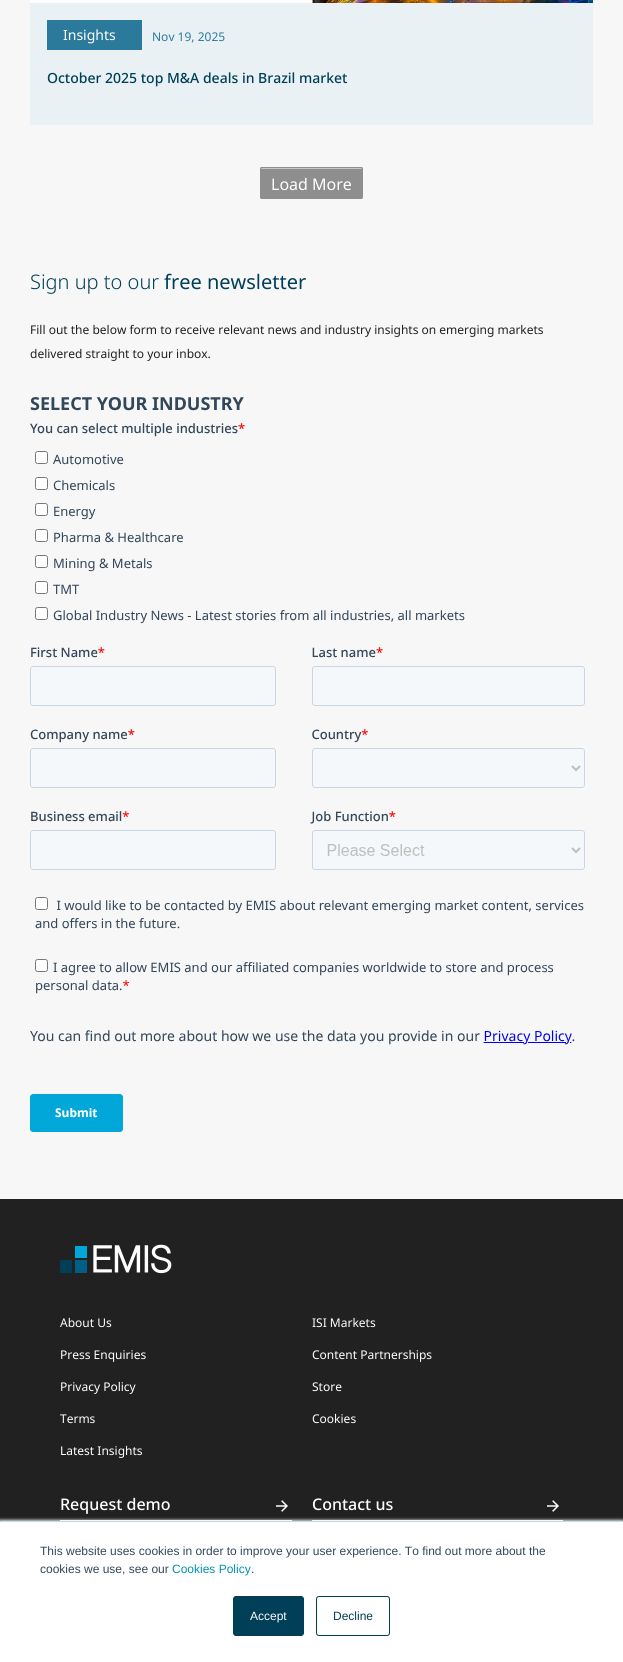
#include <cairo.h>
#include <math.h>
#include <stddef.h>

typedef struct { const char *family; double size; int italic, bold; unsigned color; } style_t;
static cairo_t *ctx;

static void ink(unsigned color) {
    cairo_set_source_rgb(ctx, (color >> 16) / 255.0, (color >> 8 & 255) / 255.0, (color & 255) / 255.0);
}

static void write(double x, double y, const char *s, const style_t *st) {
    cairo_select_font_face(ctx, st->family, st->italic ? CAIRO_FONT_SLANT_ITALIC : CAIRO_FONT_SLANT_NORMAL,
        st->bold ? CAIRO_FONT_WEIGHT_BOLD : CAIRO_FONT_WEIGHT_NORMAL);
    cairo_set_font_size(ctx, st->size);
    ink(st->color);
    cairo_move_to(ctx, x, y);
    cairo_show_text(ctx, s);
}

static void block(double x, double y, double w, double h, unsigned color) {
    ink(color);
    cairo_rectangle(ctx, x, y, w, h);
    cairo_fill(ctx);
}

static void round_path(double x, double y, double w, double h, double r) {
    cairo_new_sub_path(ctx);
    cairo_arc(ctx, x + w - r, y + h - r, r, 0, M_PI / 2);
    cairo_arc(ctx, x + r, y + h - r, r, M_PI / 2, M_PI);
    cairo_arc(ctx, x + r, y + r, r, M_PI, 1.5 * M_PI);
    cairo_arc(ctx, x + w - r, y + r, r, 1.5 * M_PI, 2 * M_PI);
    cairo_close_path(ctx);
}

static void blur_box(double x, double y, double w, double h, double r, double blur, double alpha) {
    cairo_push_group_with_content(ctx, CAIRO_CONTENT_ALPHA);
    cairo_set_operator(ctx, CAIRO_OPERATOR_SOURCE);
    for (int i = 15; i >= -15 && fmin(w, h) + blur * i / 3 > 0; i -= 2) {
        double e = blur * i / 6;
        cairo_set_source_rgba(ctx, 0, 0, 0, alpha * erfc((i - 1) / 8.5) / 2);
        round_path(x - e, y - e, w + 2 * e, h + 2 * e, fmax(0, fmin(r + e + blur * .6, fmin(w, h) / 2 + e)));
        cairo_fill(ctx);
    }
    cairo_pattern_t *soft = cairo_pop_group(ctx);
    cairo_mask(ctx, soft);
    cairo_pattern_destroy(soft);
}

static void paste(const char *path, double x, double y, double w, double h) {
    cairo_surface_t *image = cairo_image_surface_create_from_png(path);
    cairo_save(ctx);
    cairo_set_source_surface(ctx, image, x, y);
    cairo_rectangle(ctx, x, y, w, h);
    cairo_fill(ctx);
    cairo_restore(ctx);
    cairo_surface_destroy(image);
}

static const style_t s1 = {"Noto Sans", 14, 0, 0, 0xffffff};
static const style_t s2 = {"Noto Sans", 12, 0, 0, 0x2b7a9b};
static const style_t s3 = {"Noto Sans Medium", 14, 0, 0, 0x003f57};
static const style_t s4 = {"Noto Sans", 16, 0, 0, 0xffffff};
static const style_t s5 = {"Noto Sans Light", 20, 0, 0, 0x003f57};
static const style_t s6 = {"Noto Sans", 20, 0, 0, 0x003f57};
static const style_t s7 = {"Noto Sans", 12, 0, 0, 0x212121};
static const style_t s8 = {"Noto Sans", 12, 0, 0, 0xffffff};
static const style_t s9 = {"Noto Sans Medium", 16, 0, 0, 0xffffff};
static const style_t s10 = {"Liberation Sans", 12, 0, 0, 0x33475b};
static const style_t s11 = {"Liberation Sans", 12, 0, 0, 0x0091ae};
static const style_t s12 = {"Liberation Sans", 12, 0, 0, 0xffffff};
static const style_t s13 = {"Liberation Sans", 12, 0, 0, 0x003f57};

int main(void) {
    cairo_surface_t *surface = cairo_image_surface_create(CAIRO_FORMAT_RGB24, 623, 1662);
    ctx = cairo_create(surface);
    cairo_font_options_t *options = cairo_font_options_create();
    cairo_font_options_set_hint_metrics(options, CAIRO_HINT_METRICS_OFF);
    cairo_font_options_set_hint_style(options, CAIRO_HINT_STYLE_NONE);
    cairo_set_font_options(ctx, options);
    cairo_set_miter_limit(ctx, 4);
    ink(0xf7f7f7);
    cairo_paint(ctx);
    paste("pic1.png", 30, 0, 563, 3);
    block(30, 3, 563, 122, 0xe9f1f4);
    block(47, 20, 95, 30, 0x2b7a9b);
    write(63, 40, "Insights", &s1);
    write(152, 41, "Nov 19, 2025", &s2);
    write(47, 83, "October 2025 top M&A deals in Brazil market", &s3);
    ink(0x8e8e8e);
    round_path(260, 167, 103, 32, 2);
    cairo_fill(ctx);
    ink(0xc6c6c6);
    cairo_new_path(ctx);
    cairo_move_to(ctx, 262, 169);
    cairo_line_to(ctx, 361, 169);
    cairo_curve_to(ctx, 362, 169, 362, 169, 362, 170);
    cairo_curve_to(ctx, 362, 169, 362, 168, 361, 168);
    cairo_line_to(ctx, 262, 168);
    cairo_curve_to(ctx, 261, 168, 261, 169, 261, 170);
    cairo_curve_to(ctx, 261, 169, 261, 169, 262, 169);
    cairo_close_path(ctx);
    cairo_fill(ctx);
    round_path(260.5, 167.5, 102, 31, 1.5);
    ink(0x8e8e8e);
    cairo_set_line_width(ctx, 1);
    cairo_stroke(ctx);
    write(271, 190, "Load More", &s4);
    write(30, 289, "Sign up to our", &s5);
    write(164, 289, "free newsletter", &s6);
    write(30, 334, "Fill out the below form to receive relevant news and industry insights on emerging markets", &s7);
    write(30, 358, "delivered straight to your inbox.", &s7);
    paste("pic2.png", 30, 397, 555, 735);
    block(0, 1199, 623, 322, 0x212121);
    paste("pic3.png", 60, 1244, 112, 30);
    write(60, 1327, "About Us", &s8);
    write(312, 1327, "ISI Markets", &s8);
    write(60, 1359, "Press Enquiries", &s8);
    write(312, 1359, "Content Partnerships", &s8);
    write(60, 1391, "Privacy Policy", &s8);
    write(312, 1391, "Store", &s8);
    write(60, 1423, "Terms", &s8);
    write(312, 1423, "Cookies", &s8);
    write(60, 1455, "Latest Insights", &s8);
    write(60, 1510, "Request demo", &s9);
    paste("pic4.png", 276, 1500, 12, 12);
    block(60, 1520, 232, 1, 0xffffff);
    write(312, 1510, "Contact us", &s9);
    paste("pic4.png", 547, 1500, 12, 12);
    block(312, 1520, 251, 1, 0xffffff);
    ink(0xeaf0f6);
    blur_box(0, 1520, 623, 141, 0, 1.5, 1);
    block(0, 1522, 623, 140, 0xffffff);
    block(0, 1521, 623, 1, 0xcbd6e2);
    write(40, 1555, "This website uses cookies in order to improve your user experience. To find out more about the", &s10);
    write(40, 1573, "cookies we use, see our", &s10);
    write(172, 1573, "Cookies Policy", &s11);
    write(251, 1573, ".", &s10);
    ink(0x003f57);
    round_path(233.5, 1596.5, 70, 39, 2.5);
    cairo_fill_preserve(ctx);
    cairo_stroke(ctx);
    write(250, 1620, "Accept", &s12);
    round_path(316.5, 1596.5, 73, 39, 2.5);
    ink(0x003f57);
    cairo_stroke(ctx);
    write(333, 1620, "Decline", &s13);
    cairo_surface_write_to_png(surface, "screenshot.png");
    cairo_font_options_destroy(options);
    cairo_destroy(ctx);
    cairo_surface_destroy(surface);
    return 0;
}
